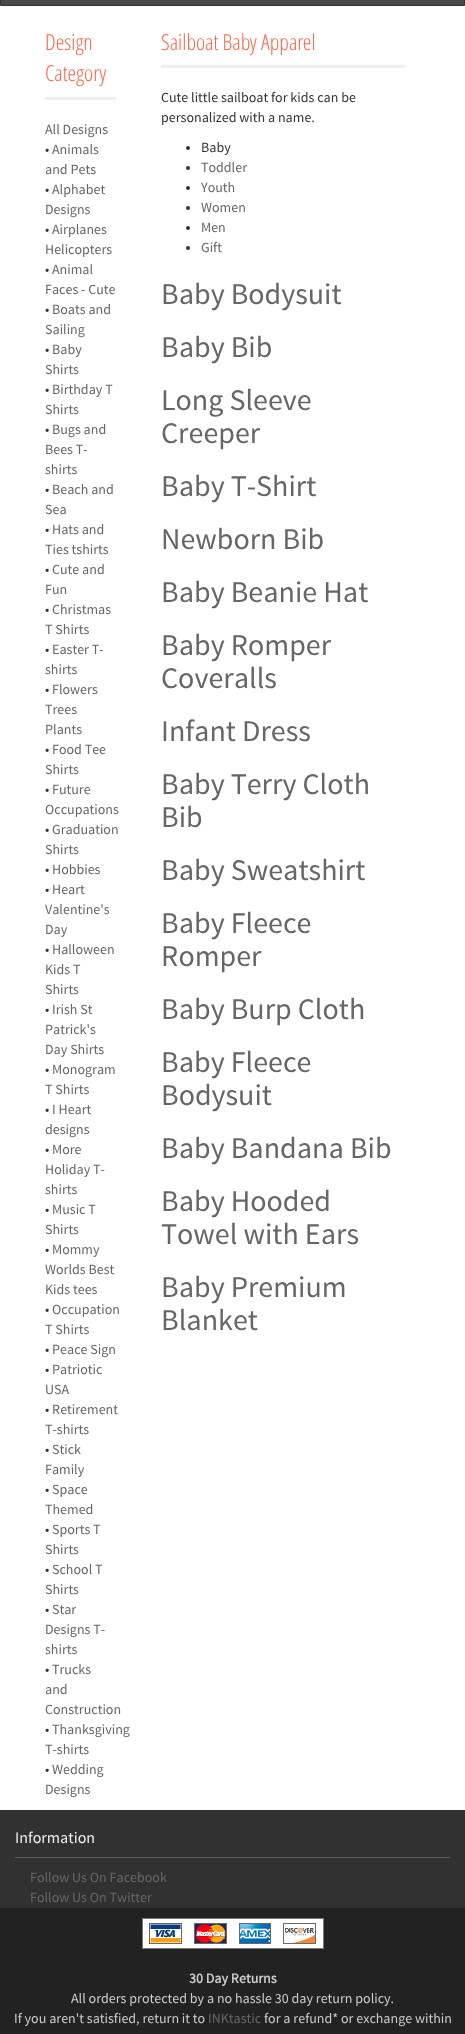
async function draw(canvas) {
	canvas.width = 465;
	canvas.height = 2034;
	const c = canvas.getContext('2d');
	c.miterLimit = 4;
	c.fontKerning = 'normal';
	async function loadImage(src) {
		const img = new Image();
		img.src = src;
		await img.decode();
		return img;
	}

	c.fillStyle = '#fff';
	c.fillRect(0, 0, 465, 2034);
	c.fillStyle = '#4a4a4a';
	c.beginPath();
	c.rect(0.5, -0.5, 464, 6);
	c.fill();
	c.strokeStyle = '#333';
	c.stroke();
	c.fillStyle = '#eee';
	c.fillRect(45, 97, 71, 3);
	c.font = '300 22px Open Sans';
	c.fillStyle = '#f96447';
	c.fillText('Design', 45, 50);
	c.fillText('Category', 45, 81);
	c.font = '14px Source Sans Pro';
	c.fillStyle = '#666';
	c.fillText('All Designs', 45, 134);
	c.fillStyle = '#333';
	c.fillText('•', 45, 154);
	c.fillStyle = '#666';
	c.fillText('Animals', 52, 154);
	c.fillText('and Pets', 45, 174);
	c.fillStyle = '#333';
	c.fillText('•', 45, 194);
	c.fillStyle = '#666';
	c.fillText('Alphabet', 52, 194);
	c.fillText('Designs', 45, 214);
	c.fillStyle = '#333';
	c.fillText('•', 45, 234);
	c.fillStyle = '#666';
	c.fillText('Airplanes', 52, 234);
	c.fillText('Helicopters', 45, 254);
	c.fillStyle = '#333';
	c.fillText('•', 45, 274);
	c.fillStyle = '#666';
	c.fillText('Animal', 52, 274);
	c.fillText('Faces - Cute', 45, 294);
	c.fillStyle = '#333';
	c.fillText('•', 45, 314);
	c.fillStyle = '#666';
	c.fillText('Boats and', 52, 314);
	c.fillText('Sailing', 45, 334);
	c.fillStyle = '#333';
	c.fillText('•', 45, 354);
	c.fillStyle = '#666';
	c.fillText('Baby', 52, 354);
	c.fillText('Shirts', 45, 374);
	c.fillStyle = '#333';
	c.fillText('•', 45, 394);
	c.fillStyle = '#666';
	c.fillText('Birthday T', 52, 394);
	c.fillText('Shirts', 45, 414);
	c.fillStyle = '#333';
	c.fillText('•', 45, 434);
	c.fillStyle = '#666';
	for (const [text, x, y] of [
		['Bugs and', 52, 434],
		['Bees T-', 45, 454],
		['shirts', 45, 474],
	]) {
		c.fillText(text, x, y);
	}
	c.fillStyle = '#333';
	c.fillText('•', 45, 494);
	c.fillStyle = '#666';
	c.fillText('Beach and', 52, 494);
	c.fillText('Sea', 45, 514);
	c.fillStyle = '#333';
	c.fillText('•', 45, 534);
	c.fillStyle = '#666';
	c.fillText('Hats and', 52, 534);
	c.fillText('Ties tshirts', 45, 554);
	c.fillStyle = '#333';
	c.fillText('•', 45, 574);
	c.fillStyle = '#666';
	c.fillText('Cute and', 52, 574);
	c.fillText('Fun', 45, 594);
	c.fillStyle = '#333';
	c.fillText('•', 45, 614);
	c.fillStyle = '#666';
	c.fillText('Christmas', 52, 614);
	c.fillText('T Shirts', 45, 634);
	c.fillStyle = '#333';
	c.fillText('•', 45, 654);
	c.fillStyle = '#666';
	c.fillText('Easter T-', 52, 654);
	c.fillText('shirts', 45, 674);
	c.fillStyle = '#333';
	c.fillText('•', 45, 694);
	c.fillStyle = '#666';
	for (const [text, x, y] of [
		['Flowers', 52, 694],
		['Trees', 45, 714],
		['Plants', 45, 734],
	]) {
		c.fillText(text, x, y);
	}
	c.fillStyle = '#333';
	c.fillText('•', 45, 754);
	c.fillStyle = '#666';
	c.fillText('Food Tee', 52, 754);
	c.fillText('Shirts', 45, 774);
	c.fillStyle = '#333';
	c.fillText('•', 45, 794);
	c.fillStyle = '#666';
	c.fillText('Future', 52, 794);
	c.fillText('Occupations', 45, 814);
	c.fillStyle = '#333';
	c.fillText('•', 45, 834);
	c.fillStyle = '#666';
	c.fillText('Graduation', 52, 834);
	c.fillText('Shirts', 45, 854);
	c.fillStyle = '#333';
	c.fillText('•', 45, 874);
	c.fillStyle = '#666';
	c.fillText('Hobbies', 52, 874);
	c.fillStyle = '#333';
	c.fillText('•', 45, 894);
	c.fillStyle = '#666';
	for (const [text, x, y] of [
		['Heart', 52, 894],
		['Valentine\'s', 45, 914],
		['Day', 45, 934],
	]) {
		c.fillText(text, x, y);
	}
	c.fillStyle = '#333';
	c.fillText('•', 45, 954);
	c.fillStyle = '#666';
	for (const [text, x, y] of [
		['Halloween', 52, 954],
		['Kids T', 45, 974],
		['Shirts', 45, 994],
	]) {
		c.fillText(text, x, y);
	}
	c.fillStyle = '#333';
	c.fillText('•', 45, 1014);
	c.fillStyle = '#666';
	for (const [text, x, y] of [
		['Irish St', 52, 1014],
		['Patrick\'s', 45, 1034],
		['Day Shirts', 45, 1054],
	]) {
		c.fillText(text, x, y);
	}
	c.fillStyle = '#333';
	c.fillText('•', 45, 1074);
	c.fillStyle = '#666';
	c.fillText('Monogram', 52, 1074);
	c.fillText('T Shirts', 45, 1094);
	c.fillStyle = '#333';
	c.fillText('•', 45, 1114);
	c.fillStyle = '#666';
	c.fillText('I Heart', 52, 1114);
	c.fillText('designs', 45, 1134);
	c.fillStyle = '#333';
	c.fillText('•', 45, 1154);
	c.fillStyle = '#666';
	for (const [text, x, y] of [
		['More', 52, 1154],
		['Holiday T-', 45, 1174],
		['shirts', 45, 1194],
	]) {
		c.fillText(text, x, y);
	}
	c.fillStyle = '#333';
	c.fillText('•', 45, 1214);
	c.fillStyle = '#666';
	c.fillText('Music T', 52, 1214);
	c.fillText('Shirts', 45, 1234);
	c.fillStyle = '#333';
	c.fillText('•', 45, 1254);
	c.fillStyle = '#666';
	for (const [text, x, y] of [
		['Mommy', 52, 1254],
		['Worlds Best', 45, 1274],
		['Kids tees', 45, 1294],
	]) {
		c.fillText(text, x, y);
	}
	c.fillStyle = '#333';
	c.fillText('•', 45, 1314);
	c.fillStyle = '#666';
	c.fillText('Occupation', 52, 1314);
	c.fillText('T Shirts', 45, 1334);
	c.fillStyle = '#333';
	c.fillText('•', 45, 1354);
	c.fillStyle = '#666';
	c.fillText('Peace Sign', 52, 1354);
	c.fillStyle = '#333';
	c.fillText('•', 45, 1374);
	c.fillStyle = '#666';
	c.fillText('Patriotic', 52, 1374);
	c.fillText('USA', 45, 1394);
	c.fillStyle = '#333';
	c.fillText('•', 45, 1414);
	c.fillStyle = '#666';
	c.fillText('Retirement', 52, 1414);
	c.fillText('T-shirts', 45, 1434);
	c.fillStyle = '#333';
	c.fillText('•', 45, 1454);
	c.fillStyle = '#666';
	c.fillText('Stick', 52, 1454);
	c.fillText('Family', 45, 1474);
	c.fillStyle = '#333';
	c.fillText('•', 45, 1494);
	c.fillStyle = '#666';
	c.fillText('Space', 52, 1494);
	c.fillText('Themed', 45, 1514);
	c.fillStyle = '#333';
	c.fillText('•', 45, 1534);
	c.fillStyle = '#666';
	c.fillText('Sports T', 52, 1534);
	c.fillText('Shirts', 45, 1554);
	c.fillStyle = '#333';
	c.fillText('•', 45, 1574);
	c.fillStyle = '#666';
	c.fillText('School T', 52, 1574);
	c.fillText('Shirts', 45, 1594);
	c.fillStyle = '#333';
	c.fillText('•', 45, 1614);
	c.fillStyle = '#666';
	for (const [text, x, y] of [
		['Star', 52, 1614],
		['Designs T-', 45, 1634],
		['shirts', 45, 1654],
	]) {
		c.fillText(text, x, y);
	}
	c.fillStyle = '#333';
	c.fillText('•', 45, 1674);
	c.fillStyle = '#666';
	for (const [text, x, y] of [
		['Trucks', 52, 1674],
		['and', 45, 1694],
		['Construction', 45, 1714],
	]) {
		c.fillText(text, x, y);
	}
	c.fillStyle = '#333';
	c.fillText('•', 45, 1734);
	c.fillStyle = '#666';
	c.fillText('Thanksgiving', 52, 1734);
	c.fillText('T-shirts', 45, 1754);
	c.fillStyle = '#333';
	c.fillText('•', 45, 1774);
	c.fillStyle = '#666';
	c.fillText('Wedding', 52, 1774);
	c.fillText('Designs', 45, 1794);
	c.fillStyle = '#eee';
	c.fillRect(161, 65, 244, 3);
	c.font = '300 22px Open Sans';
	c.fillStyle = '#f96447';
	c.fillText('Sailboat Baby Apparel', 161, 50);
	c.font = '14px Source Sans Pro';
	c.fillStyle = '#333';
	c.fillText('Cute little sailboat for kids can be', 161, 102);
	c.fillText('personalized with a name.', 161, 122);
	c.beginPath();
	c.arc(188, 148, 2, 0, 2 * Math.PI);
	c.fill();
	c.fillText('Baby', 201, 152);
	c.beginPath();
	c.arc(188, 168, 2, 0, 2 * Math.PI);
	c.fill();
	c.fillStyle = '#666';
	c.fillText('Toddler', 201, 172);
	c.fillStyle = '#333';
	c.beginPath();
	c.arc(188, 188, 2, 0, 2 * Math.PI);
	c.fill();
	c.fillStyle = '#666';
	c.fillText('Youth', 201, 192);
	c.fillStyle = '#333';
	c.beginPath();
	c.arc(188, 208, 2, 0, 2 * Math.PI);
	c.fill();
	c.fillStyle = '#666';
	c.fillText('Women', 201, 212);
	c.fillStyle = '#333';
	c.beginPath();
	c.arc(188, 228, 2, 0, 2 * Math.PI);
	c.fill();
	c.fillStyle = '#666';
	c.fillText('Men', 201, 232);
	c.fillStyle = '#333';
	c.beginPath();
	c.arc(188, 248, 2, 0, 2 * Math.PI);
	c.fill();
	c.fillStyle = '#666';
	c.fillText('Gift', 201, 252);
	c.font = '30px Source Sans Pro';
	for (const [text, x, y] of [
		['Baby Bodysuit', 161, 304],
		['Baby Bib', 161, 357],
		['Long Sleeve', 161, 410],
		['Creeper', 161, 443],
		['Baby T-Shirt', 161, 496],
		['Newborn Bib', 161, 549],
		['Baby Beanie Hat', 161, 602],
		['Baby Romper', 161, 655],
		['Coveralls', 161, 688],
		['Infant Dress', 161, 741],
		['Baby Terry Cloth', 161, 794],
		['Bib', 161, 827],
		['Baby Sweatshirt', 161, 880],
		['Baby Fleece', 161, 933],
		['Romper', 161, 966],
		['Baby Burp Cloth', 161, 1019],
		['Baby Fleece', 161, 1072],
		['Bodysuit', 161, 1105],
		['Baby Bandana Bib', 161, 1158],
		['Baby Hooded', 161, 1211],
		['Towel with Ears', 161, 1244],
		['Baby Premium', 161, 1297],
		['Blanket', 161, 1330],
	]) {
		c.fillText(text, x, y);
	}
	c.fillStyle = '#313131';
	c.fillRect(0, 1810, 465, 98);
	c.fillStyle = '#5d5d5d';
	c.fillRect(15, 1857, 435, 1);
	c.font = '16px Source Sans Pro';
	c.fillStyle = '#eee';
	c.fillText('Information', 15, 1843);
	c.font = '14px Source Sans Pro';
	c.fillStyle = '#666';
	c.fillText('Follow Us On Facebook', 30, 1882);
	c.fillText('Follow Us On Twitter', 30, 1902);
	c.fillStyle = '#222';
	c.fillRect(0, 1908, 465, 126);
	c.drawImage(await loadImage('img1.png'), 142, 1918, 182, 31);
	c.font = 'bold 14px Source Sans Pro';
	c.fillStyle = '#ccc';
	c.fillText('30 Day Returns', 189, 1983);
	c.font = '14px Source Sans Pro';
	c.fillText('All orders protected by a no hassle 30 day return policy.', 71, 2003);
	c.fillText('If you aren\'t satisfied, return it to', 14, 2023);
	c.fillStyle = '#666';
	c.fillText('INKtastic', 208, 2023);
	c.fillStyle = '#ccc';
	c.fillText('for a refund* or exchange within', 264, 2023);
}

draw(document.querySelector('canvas'));
